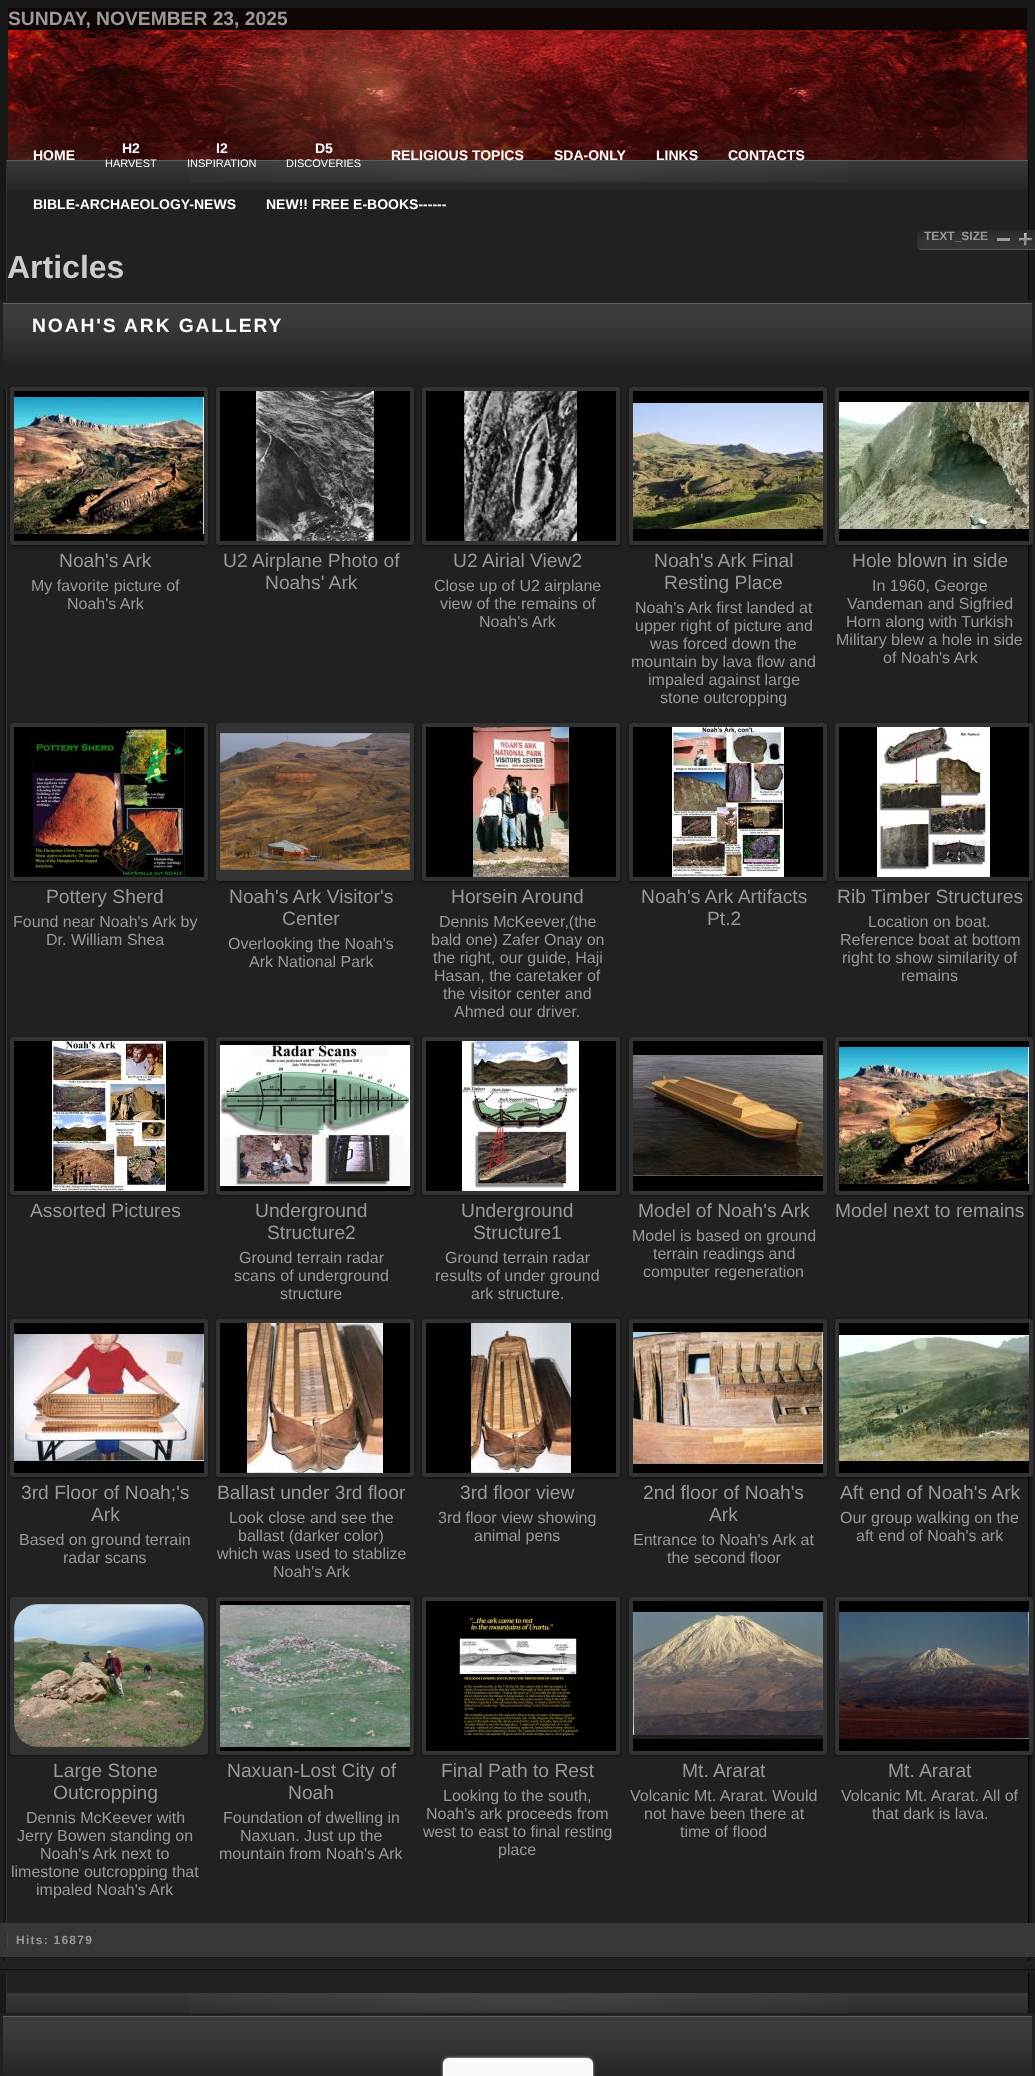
async function draw(canvas) {
	canvas.width = 1035;
	canvas.height = 2076;
	const c = canvas.getContext('2d');
	c.miterLimit = 4;
	c.fontKerning = 'normal';
	async function loadImage(src) {
		const img = new Image();
		img.src = src;
		await img.decode();
		return img;
	}

	c.fillStyle = '#181818';
	c.fillRect(0, 0, 1035, 2076);
	c.drawImage(await loadImage('img1.png'), 8, 30, 1019, 130);
	c.fillStyle = '#110606';
	c.fillRect(8, 8, 1019, 22);
	c.font = 'bold 19.25px Liberation Sans';
	c.fillStyle = '#999';
	c.fillText('SUNDAY, NOVEMBER 23, 2025', 8, 25);
	c.fillStyle = '#5e5e5e';
	c.fillRect(6, 160, 1023, 1);
	c.font = 'bold 14px Liberation Sans';
	c.fillStyle = '#fff';
	c.fillText('HOME', 33, 160);
	c.fillText('H2', 122, 153);
	c.drawImage(await loadImage('img2.png'), 7, 161, 1021, 29);
	c.font = '11px Liberation Sans';
	c.fillText('HARVEST', 105, 167);
	c.font = 'bold 14px Liberation Sans';
	c.fillText('I2', 216, 153);
	c.drawImage(await loadImage('img3.png'), 189, 161, 659, 21);
	c.font = '11px Liberation Sans';
	c.fillText('INSPIRATION', 187, 167);
	c.font = 'bold 14px Liberation Sans';
	c.fillText('D5', 315, 153);
	c.font = '11px Liberation Sans';
	c.fillText('DISCOVERIES', 286, 167);
	c.font = 'bold 14px Liberation Sans';
	for (const [text, x, y] of [
		['RELIGIOUS TOPICS', 391, 160],
		['SDA-ONLY', 554, 160],
		['LINKS', 656, 160],
		['CONTACTS', 728, 160],
	]) {
		c.fillText(text, x, y);
	}
	c.fillStyle = '#212121';
	c.fillRect(7, 190, 1021, 1803);
	c.fillStyle = '#fff';
	c.fillText('BIBLE-ARCHAEOLOGY-NEWS', 33, 209);
	c.fillText('NEW!! FREE E-BOOKS------', 266, 209);
	c.fillStyle = '#000';
	c.fillRect(1028, 160, 1, 1853);
	c.fillStyle = '#333';
	c.fillRect(6, 160, 1, 1853);
	c.drawImage(await loadImage('img4.png'), 917, 229, 118, 21);
	c.font = 'bold 12px Liberation Sans';
	c.fillStyle = '#999';
	c.fillText('TEXT_SIZE', 924, 240);
	c.fillStyle = '#9d9d9d';
	c.fillRect(997, 238, 13, 3);
	c.drawImage(await loadImage('img5.png'), 1019, 233, 13, 13);
	c.font = 'bold 32px Liberation Sans';
	c.fillStyle = '#ccc';
	c.fillText('Articles', 7, 278);
	c.drawImage(await loadImage('img6.png'), 0, 300, 1035, 89);
	c.fillStyle = '#212121';
	c.fillRect(0, 303, 3, 1658);
	c.fillRect(1032, 303, 3, 1658);
	c.drawImage(await loadImage('img7.png'), 0, 1961, 1035, 12);
	c.letterSpacing = '1.9px';
	c.font = 'bold 19.25px Liberation Sans';
	c.fillStyle = '#fff';
	c.fillText('NOAH\'S ARK GALLERY', 32, 332);
	c.fillStyle = '#00000099';
	c.filter = 'blur(1.5px)';
	c.beginPath();
	c.roundRect(10, 388, 198, 158, 3);
	c.fill();
	c.filter = 'none';
	c.fillStyle = '#333';
	c.beginPath();
	c.roundRect(10, 387, 198, 158, 3);
	c.fill();
	c.drawImage(await loadImage('img8.png'), 14, 391, 190, 150);
	c.letterSpacing = '0px';
	c.font = '19.25px Liberation Sans';
	c.fillStyle = '#999';
	c.fillText('Noah\'s Ark', 59, 567);
	c.font = '16px Liberation Sans';
	c.fillText('My favorite picture of', 31, 591);
	c.fillText('Noah\'s Ark', 67, 609);
	c.fillStyle = '#00000099';
	c.filter = 'blur(1.5px)';
	c.beginPath();
	c.roundRect(216, 388, 198, 158, 3);
	c.fill();
	c.filter = 'none';
	c.fillStyle = '#333';
	c.beginPath();
	c.roundRect(216, 387, 198, 158, 3);
	c.fill();
	c.drawImage(await loadImage('img9.png'), 220, 391, 190, 150);
	c.font = '19.25px Liberation Sans';
	c.fillStyle = '#999';
	c.fillText('U2 Airplane Photo of', 223, 567);
	c.fillText('Noahs\' Ark', 265, 589);
	c.fillStyle = '#00000099';
	c.filter = 'blur(1.5px)';
	c.beginPath();
	c.roundRect(422, 388, 198, 158, 3);
	c.fill();
	c.filter = 'none';
	c.fillStyle = '#333';
	c.beginPath();
	c.roundRect(422, 387, 198, 158, 3);
	c.fill();
	c.drawImage(await loadImage('img10.png'), 426, 391, 190, 150);
	c.fillStyle = '#999';
	c.fillText('U2 Airial View2', 453, 567);
	c.font = '16px Liberation Sans';
	for (const [text, x, y] of [
		['Close up of U2 airplane', 434, 591],
		['view of the remains of', 440, 609],
		['Noah\'s Ark', 479, 627],
	]) {
		c.fillText(text, x, y);
	}
	c.fillStyle = '#00000099';
	c.filter = 'blur(1.5px)';
	c.beginPath();
	c.roundRect(629, 388, 198, 158, 3);
	c.fill();
	c.filter = 'none';
	c.fillStyle = '#333';
	c.beginPath();
	c.roundRect(629, 387, 198, 158, 3);
	c.fill();
	c.drawImage(await loadImage('img11.png'), 633, 391, 190, 150);
	c.font = '19.25px Liberation Sans';
	c.fillStyle = '#999';
	c.fillText('Noah\'s Ark Final', 654, 567);
	c.fillText('Resting Place', 664, 589);
	c.font = '16px Liberation Sans';
	for (const [text, x, y] of [
		['Noah\'s Ark first landed at', 635, 613],
		['upper right of picture and', 635, 631],
		['was forced down the', 650, 649],
		['mountain by lava flow and', 631, 667],
		['impaled against large', 648, 685],
		['stone outcropping', 660, 703],
	]) {
		c.fillText(text, x, y);
	}
	c.save();
	c.beginPath();
	c.rect(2, 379, 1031, 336);
	c.clip();
	c.fillStyle = '#00000099';
	c.filter = 'blur(1.5px)';
	c.beginPath();
	c.roundRect(835, 388, 198, 158, 3);
	c.fill();
	c.filter = 'none';
	c.restore();
	c.fillStyle = '#333';
	c.beginPath();
	c.roundRect(835, 387, 198, 158, 3);
	c.fill();
	c.drawImage(await loadImage('img12.png'), 839, 391, 190, 150);
	c.font = '19.25px Liberation Sans';
	c.fillStyle = '#999';
	c.fillText('Hole blown in side', 852, 567);
	c.font = '16px Liberation Sans';
	for (const [text, x, y] of [
		['In 1960, George', 872, 591],
		['Vandeman and Sigfried', 847, 609],
		['Horn along with Turkish', 846, 627],
		['Military blew a hole in side', 836, 645],
		['of Noah\'s Ark', 883, 663],
	]) {
		c.fillText(text, x, y);
	}
	c.fillStyle = '#00000099';
	c.filter = 'blur(1.5px)';
	c.beginPath();
	c.roundRect(10, 724, 198, 158, 3);
	c.fill();
	c.filter = 'none';
	c.fillStyle = '#333';
	c.beginPath();
	c.roundRect(10, 723, 198, 158, 3);
	c.fill();
	c.drawImage(await loadImage('img13.png'), 14, 727, 190, 150);
	c.font = '19.25px Liberation Sans';
	c.fillStyle = '#999';
	c.fillText('Pottery Sherd', 46, 903);
	c.font = '16px Liberation Sans';
	c.fillText('Found near Noah\'s Ark by', 13, 927);
	c.fillText('Dr. William Shea', 46, 945);
	c.fillStyle = '#00000099';
	c.filter = 'blur(1.5px)';
	c.beginPath();
	c.roundRect(216, 724, 198, 158, 3);
	c.fill();
	c.filter = 'none';
	c.fillStyle = '#333';
	c.beginPath();
	c.roundRect(216, 723, 198, 158, 3);
	c.fill();
	c.drawImage(await loadImage('img14.png'), 220, 733, 190, 137);
	c.font = '19.25px Liberation Sans';
	c.fillStyle = '#999';
	c.fillText('Noah\'s Ark Visitor\'s', 229, 903);
	c.fillText('Center', 282, 925);
	c.font = '16px Liberation Sans';
	c.fillText('Overlooking the Noah\'s', 228, 949);
	c.fillText('Ark National Park', 249, 967);
	c.fillStyle = '#00000099';
	c.filter = 'blur(1.5px)';
	c.beginPath();
	c.roundRect(422, 724, 198, 158, 3);
	c.fill();
	c.filter = 'none';
	c.fillStyle = '#333';
	c.beginPath();
	c.roundRect(422, 723, 198, 158, 3);
	c.fill();
	c.drawImage(await loadImage('img15.png'), 426, 727, 190, 150);
	c.font = '19.25px Liberation Sans';
	c.fillStyle = '#999';
	c.fillText('Horsein Around', 451, 903);
	c.font = '16px Liberation Sans';
	for (const [text, x, y] of [
		['Dennis McKeever,(the', 439, 927],
		['bald one) Zafer Onay on', 431, 945],
		['the right, our guide, Haji', 433, 963],
		['Hasan, the caretaker of', 434, 981],
		['the visitor center and', 443, 999],
		['Ahmed our driver.', 454, 1017],
	]) {
		c.fillText(text, x, y);
	}
	c.fillStyle = '#00000099';
	c.filter = 'blur(1.5px)';
	c.beginPath();
	c.roundRect(629, 724, 198, 158, 3);
	c.fill();
	c.filter = 'none';
	c.fillStyle = '#333';
	c.beginPath();
	c.roundRect(629, 723, 198, 158, 3);
	c.fill();
	c.drawImage(await loadImage('img16.png'), 633, 727, 190, 150);
	c.font = '19.25px Liberation Sans';
	c.fillStyle = '#999';
	c.fillText('Noah\'s Ark Artifacts', 641, 903);
	c.fillText('Pt.2', 707, 925);
	c.save();
	c.beginPath();
	c.rect(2, 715, 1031, 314);
	c.clip();
	c.fillStyle = '#00000099';
	c.filter = 'blur(1.5px)';
	c.beginPath();
	c.roundRect(835, 724, 198, 158, 3);
	c.fill();
	c.filter = 'none';
	c.restore();
	c.fillStyle = '#333';
	c.beginPath();
	c.roundRect(835, 723, 198, 158, 3);
	c.fill();
	c.drawImage(await loadImage('img17.png'), 839, 727, 190, 150);
	c.fillStyle = '#999';
	c.fillText('Rib Timber Structures', 837, 903);
	c.font = '16px Liberation Sans';
	for (const [text, x, y] of [
		['Location on boat.', 868, 927],
		['Reference boat at bottom', 840, 945],
		['right to show similarity of', 842, 963],
		['remains', 901, 981],
	]) {
		c.fillText(text, x, y);
	}
	c.fillStyle = '#00000099';
	c.filter = 'blur(1.5px)';
	c.beginPath();
	c.roundRect(10, 1038, 198, 158, 3);
	c.fill();
	c.filter = 'none';
	c.fillStyle = '#333';
	c.beginPath();
	c.roundRect(10, 1037, 198, 158, 3);
	c.fill();
	c.drawImage(await loadImage('img18.png'), 14, 1041, 190, 150);
	c.font = '19.25px Liberation Sans';
	c.fillStyle = '#999';
	c.fillText('Assorted Pictures', 30, 1217);
	c.fillStyle = '#00000099';
	c.filter = 'blur(1.5px)';
	c.beginPath();
	c.roundRect(216, 1038, 198, 158, 3);
	c.fill();
	c.filter = 'none';
	c.fillStyle = '#333';
	c.beginPath();
	c.roundRect(216, 1037, 198, 158, 3);
	c.fill();
	c.drawImage(await loadImage('img19.png'), 220, 1041, 190, 150);
	c.fillStyle = '#999';
	c.fillText('Underground', 255, 1217);
	c.fillText('Structure2', 267, 1239);
	c.font = '16px Liberation Sans';
	for (const [text, x, y] of [
		['Ground terrain radar', 239, 1263],
		['scans of underground', 234, 1281],
		['structure', 280, 1299],
	]) {
		c.fillText(text, x, y);
	}
	c.fillStyle = '#00000099';
	c.filter = 'blur(1.5px)';
	c.beginPath();
	c.roundRect(422, 1038, 198, 158, 3);
	c.fill();
	c.filter = 'none';
	c.fillStyle = '#333';
	c.beginPath();
	c.roundRect(422, 1037, 198, 158, 3);
	c.fill();
	c.drawImage(await loadImage('img20.png'), 426, 1041, 190, 150);
	c.font = '19.25px Liberation Sans';
	c.fillStyle = '#999';
	c.fillText('Underground', 461, 1217);
	c.fillText('Structure1', 473, 1239);
	c.font = '16px Liberation Sans';
	for (const [text, x, y] of [
		['Ground terrain radar', 445, 1263],
		['results of under ground', 435, 1281],
		['ark structure.', 471, 1299],
	]) {
		c.fillText(text, x, y);
	}
	c.fillStyle = '#00000099';
	c.filter = 'blur(1.5px)';
	c.beginPath();
	c.roundRect(629, 1038, 198, 158, 3);
	c.fill();
	c.filter = 'none';
	c.fillStyle = '#333';
	c.beginPath();
	c.roundRect(629, 1037, 198, 158, 3);
	c.fill();
	c.drawImage(await loadImage('img21.png'), 633, 1041, 190, 150);
	c.font = '19.25px Liberation Sans';
	c.fillStyle = '#999';
	c.fillText('Model of Noah\'s Ark', 638, 1217);
	c.font = '16px Liberation Sans';
	for (const [text, x, y] of [
		['Model is based on ground', 632, 1241],
		['terrain readings and', 653, 1259],
		['computer regeneration', 643, 1277],
	]) {
		c.fillText(text, x, y);
	}
	c.save();
	c.beginPath();
	c.rect(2, 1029, 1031, 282);
	c.clip();
	c.fillStyle = '#00000099';
	c.filter = 'blur(1.5px)';
	c.beginPath();
	c.roundRect(835, 1038, 198, 158, 3);
	c.fill();
	c.filter = 'none';
	c.restore();
	c.fillStyle = '#333';
	c.beginPath();
	c.roundRect(835, 1037, 198, 158, 3);
	c.fill();
	c.drawImage(await loadImage('img22.png'), 839, 1041, 190, 150);
	c.font = '19.25px Liberation Sans';
	c.fillStyle = '#999';
	c.fillText('Model next to remains', 835, 1217);
	c.fillStyle = '#00000099';
	c.filter = 'blur(1.5px)';
	c.beginPath();
	c.roundRect(10, 1320, 198, 158, 3);
	c.fill();
	c.filter = 'none';
	c.fillStyle = '#333';
	c.beginPath();
	c.roundRect(10, 1319, 198, 158, 3);
	c.fill();
	c.drawImage(await loadImage('img23.png'), 14, 1323, 190, 150);
	c.fillStyle = '#999';
	c.fillText('3rd Floor of Noah;\'s', 21, 1499);
	c.fillText('Ark', 91, 1521);
	c.font = '16px Liberation Sans';
	c.fillText('Based on ground terrain', 19, 1545);
	c.fillText('radar scans', 63, 1563);
	c.fillStyle = '#00000099';
	c.filter = 'blur(1.5px)';
	c.beginPath();
	c.roundRect(216, 1320, 198, 158, 3);
	c.fill();
	c.filter = 'none';
	c.fillStyle = '#333';
	c.beginPath();
	c.roundRect(216, 1319, 198, 158, 3);
	c.fill();
	c.drawImage(await loadImage('img24.png'), 220, 1323, 190, 150);
	c.font = '19.25px Liberation Sans';
	c.fillStyle = '#999';
	c.fillText('Ballast under 3rd floor', 217, 1499);
	c.font = '16px Liberation Sans';
	for (const [text, x, y] of [
		['Look close and see the', 229, 1523],
		['ballast (darker color)', 238, 1541],
		['which was used to stablize', 217, 1559],
		['Noah\'s Ark', 273, 1577],
	]) {
		c.fillText(text, x, y);
	}
	c.fillStyle = '#00000099';
	c.filter = 'blur(1.5px)';
	c.beginPath();
	c.roundRect(422, 1320, 198, 158, 3);
	c.fill();
	c.filter = 'none';
	c.fillStyle = '#333';
	c.beginPath();
	c.roundRect(422, 1319, 198, 158, 3);
	c.fill();
	c.drawImage(await loadImage('img25.png'), 426, 1323, 190, 150);
	c.font = '19.25px Liberation Sans';
	c.fillStyle = '#999';
	c.fillText('3rd floor view', 460, 1499);
	c.font = '16px Liberation Sans';
	c.fillText('3rd floor view showing', 438, 1523);
	c.fillText('animal pens', 474, 1541);
	c.fillStyle = '#00000099';
	c.filter = 'blur(1.5px)';
	c.beginPath();
	c.roundRect(629, 1320, 198, 158, 3);
	c.fill();
	c.filter = 'none';
	c.fillStyle = '#333';
	c.beginPath();
	c.roundRect(629, 1319, 198, 158, 3);
	c.fill();
	c.drawImage(await loadImage('img26.png'), 633, 1323, 190, 150);
	c.font = '19.25px Liberation Sans';
	c.fillStyle = '#999';
	c.fillText('2nd floor of Noah\'s', 643, 1499);
	c.fillText('Ark', 709, 1521);
	c.font = '16px Liberation Sans';
	c.fillText('Entrance to Noah\'s Ark at', 633, 1545);
	c.fillText('the second floor', 667, 1563);
	c.save();
	c.beginPath();
	c.rect(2, 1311, 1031, 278);
	c.clip();
	c.fillStyle = '#00000099';
	c.filter = 'blur(1.5px)';
	c.beginPath();
	c.roundRect(835, 1320, 198, 158, 3);
	c.fill();
	c.filter = 'none';
	c.restore();
	c.fillStyle = '#333';
	c.beginPath();
	c.roundRect(835, 1319, 198, 158, 3);
	c.fill();
	c.drawImage(await loadImage('img27.png'), 839, 1323, 190, 150);
	c.font = '19.25px Liberation Sans';
	c.fillStyle = '#999';
	c.fillText('Aft end of Noah\'s Ark', 840, 1499);
	c.font = '16px Liberation Sans';
	c.fillText('Our group walking on the', 840, 1523);
	c.fillText('aft end of Noah\'s ark', 856, 1541);
	c.fillStyle = '#00000099';
	c.filter = 'blur(1.5px)';
	c.beginPath();
	c.roundRect(10, 1598, 198, 158, 3);
	c.fill();
	c.filter = 'none';
	c.fillStyle = '#333';
	c.beginPath();
	c.roundRect(10, 1597, 198, 158, 3);
	c.fill();
	c.drawImage(await loadImage('img28.png'), 14, 1604, 190, 143);
	c.font = '19.25px Liberation Sans';
	c.fillStyle = '#999';
	c.fillText('Large Stone', 53, 1777);
	c.fillText('Outcropping', 53, 1799);
	c.font = '16px Liberation Sans';
	for (const [text, x, y] of [
		['Dennis McKeever with', 26, 1823],
		['Jerry Bowen standing on', 17, 1841],
		['Noah\'s Ark next to', 40, 1859],
		['limestone outcropping that', 11, 1877],
		['impaled Noah\'s Ark', 36, 1895],
	]) {
		c.fillText(text, x, y);
	}
	c.fillStyle = '#00000099';
	c.filter = 'blur(1.5px)';
	c.beginPath();
	c.roundRect(216, 1598, 198, 158, 3);
	c.fill();
	c.filter = 'none';
	c.fillStyle = '#333';
	c.beginPath();
	c.roundRect(216, 1597, 198, 158, 3);
	c.fill();
	c.drawImage(await loadImage('img29.png'), 220, 1601, 190, 150);
	c.font = '19.25px Liberation Sans';
	c.fillStyle = '#999';
	c.fillText('Naxuan-Lost City of', 227, 1777);
	c.fillText('Noah', 288, 1799);
	c.font = '16px Liberation Sans';
	for (const [text, x, y] of [
		['Foundation of dwelling in', 223, 1823],
		['Naxuan. Just up the', 240, 1841],
		['mountain from Noah\'s Ark', 219, 1859],
	]) {
		c.fillText(text, x, y);
	}
	c.fillStyle = '#00000099';
	c.filter = 'blur(1.5px)';
	c.beginPath();
	c.roundRect(422, 1598, 198, 158, 3);
	c.fill();
	c.filter = 'none';
	c.fillStyle = '#333';
	c.beginPath();
	c.roundRect(422, 1597, 198, 158, 3);
	c.fill();
	c.drawImage(await loadImage('img30.png'), 426, 1601, 190, 150);
	c.font = '19.25px Liberation Sans';
	c.fillStyle = '#999';
	c.fillText('Final Path to Rest', 441, 1777);
	c.font = '16px Liberation Sans';
	for (const [text, x, y] of [
		['Looking to the south,', 443, 1801],
		['Noah\'s ark proceeds from', 426, 1819],
		['west to east to final resting', 423, 1837],
		['place', 498, 1855],
	]) {
		c.fillText(text, x, y);
	}
	c.fillStyle = '#00000099';
	c.filter = 'blur(1.5px)';
	c.beginPath();
	c.roundRect(629, 1598, 198, 158, 3);
	c.fill();
	c.filter = 'none';
	c.fillStyle = '#333';
	c.beginPath();
	c.roundRect(629, 1597, 198, 158, 3);
	c.fill();
	c.drawImage(await loadImage('img31.png'), 633, 1601, 190, 150);
	c.font = '19.25px Liberation Sans';
	c.fillStyle = '#999';
	c.fillText('Mt. Ararat', 682, 1777);
	c.font = '16px Liberation Sans';
	for (const [text, x, y] of [
		['Volcanic Mt. Ararat. Would', 630, 1801],
		['not have been there at', 644, 1819],
		['time of flood', 680, 1837],
	]) {
		c.fillText(text, x, y);
	}
	c.save();
	c.beginPath();
	c.rect(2, 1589, 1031, 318);
	c.clip();
	c.fillStyle = '#00000099';
	c.filter = 'blur(1.5px)';
	c.beginPath();
	c.roundRect(835, 1598, 198, 158, 3);
	c.fill();
	c.filter = 'none';
	c.restore();
	c.fillStyle = '#333';
	c.beginPath();
	c.roundRect(835, 1597, 198, 158, 3);
	c.fill();
	c.drawImage(await loadImage('img32.png'), 839, 1601, 190, 150);
	c.font = '19.25px Liberation Sans';
	c.fillStyle = '#999';
	c.fillText('Mt. Ararat', 888, 1777);
	c.font = '16px Liberation Sans';
	c.fillText('Volcanic Mt. Ararat. All of', 841, 1801);
	c.fillText('that dark is lava.', 872, 1819);
	c.fillStyle = '#373737';
	c.fillRect(0, 1923, 1035, 34);
	c.fillStyle = '#1a1a1a';
	c.fillRect(0, 1957, 1035, 1);
	c.letterSpacing = '1.25px';
	c.font = 'bold 12px Liberation Sans';
	c.fillStyle = '#999';
	c.fillText('Hits: 16879', 16, 1944);
	c.fillStyle = '#444';
	c.fillRect(7, 1933, 1, 14);
	c.drawImage(await loadImage('img33.png'), 7, 1993, 1021, 20);
	c.drawImage(await loadImage('img34.png'), 189, 1993, 659, 20);
	c.drawImage(await loadImage('img35.png'), 0, 2013, 1035, 63);
	c.fillStyle = '#212121';
	c.fillRect(0, 2016, 3, 58);
	c.fillRect(1032, 2016, 3, 58);
	c.fillStyle = '#ccc';
	c.filter = 'blur(1.5px)';
	c.beginPath();
	c.roundRect(443, 2058, 150, 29, 6);
	c.fill();
	c.filter = 'none';
	c.fillStyle = '#f9f9f9';
	c.beginPath();
	c.roundRect(444, 2059, 148, 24, 5);
	c.fill();
	c.strokeStyle = '#fff';
	c.lineWidth = 2;
	c.stroke();
}

draw(document.querySelector('canvas'));
